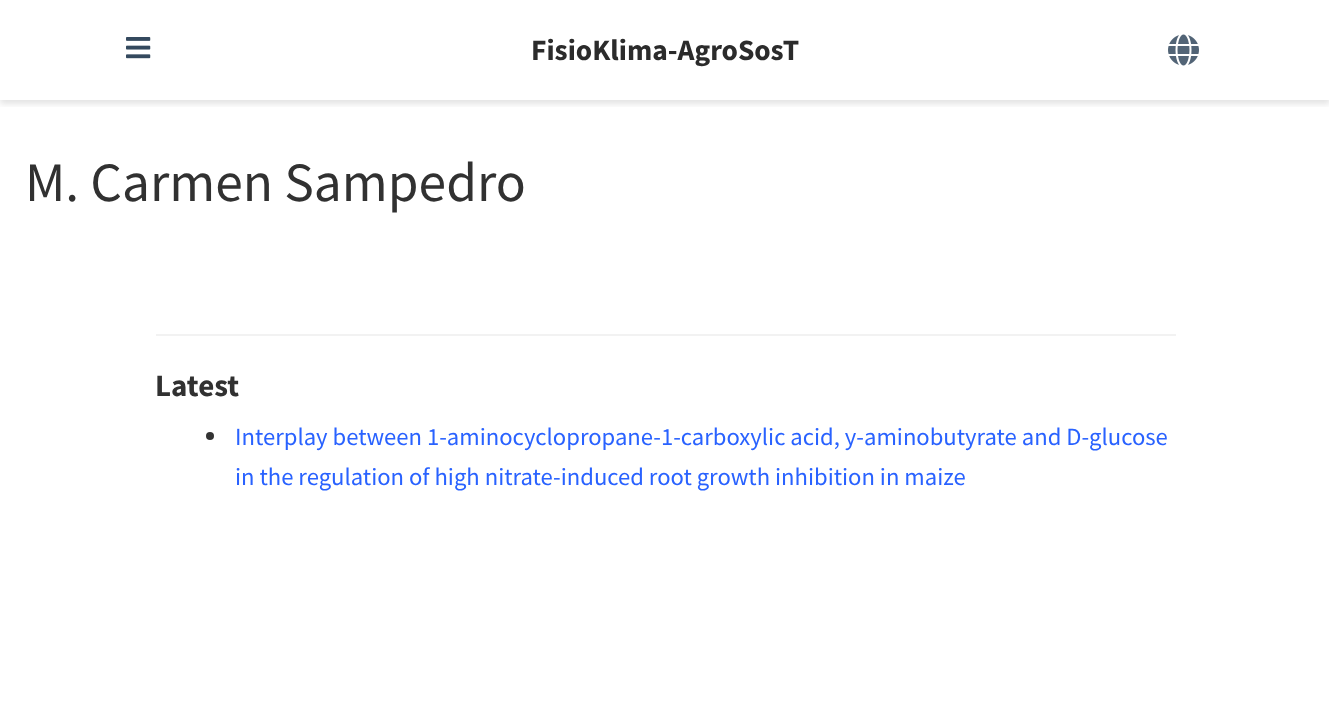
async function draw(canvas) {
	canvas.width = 1329;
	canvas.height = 718;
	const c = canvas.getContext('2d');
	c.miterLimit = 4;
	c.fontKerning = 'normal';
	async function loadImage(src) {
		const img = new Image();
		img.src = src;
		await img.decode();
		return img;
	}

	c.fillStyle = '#fff';
	c.fillRect(0, 0, 1329, 718);
	c.save();
	c.beginPath();
	c.rect(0, 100, 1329, 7);
	c.clip();
	c.fillStyle = '#0000001c';
	c.filter = 'blur(3px)';
	c.beginPath();
	c.rect(0, 4, 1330, 100);
	c.fill();
	c.filter = 'none';
	c.restore();
	c.drawImage(await loadImage('img1.png'), 126, 37, 25, 22);
	c.font = 'bold 29.5px Source Sans Pro';
	c.fillStyle = '#2b2b2b';
	c.fillText('FisioKlima-AgroSosT', 531, 60);
	c.drawImage(await loadImage('img2.png'), 1168, 34, 31, 32);
	c.font = '55.5px Source Sans Pro';
	c.fillStyle = '#313131';
	c.fillText('M. Carmen Sampedro', 25, 201);
	c.fillStyle = '#f2f2f2';
	c.fillRect(156, 334, 1020, 2);
	c.font = 'bold 31px Source Sans Pro';
	c.fillStyle = '#313131';
	c.fillText('Latest', 155, 396);
	c.fillStyle = '#333';
	c.beginPath();
	c.arc(210, 436, 4, 0, 2 * Math.PI);
	c.fill();
	c.font = '24.65px Source Sans Pro';
	c.fillStyle = '#2962ff';
	c.fillText('Interplay between 1-aminocyclopropane-1-carboxylic acid, y-aminobutyrate and D-glucose', 235, 445);
	c.fillText('in the regulation of high nitrate-induced root growth inhibition in maize', 235, 485);
}

draw(document.querySelector('canvas'));
